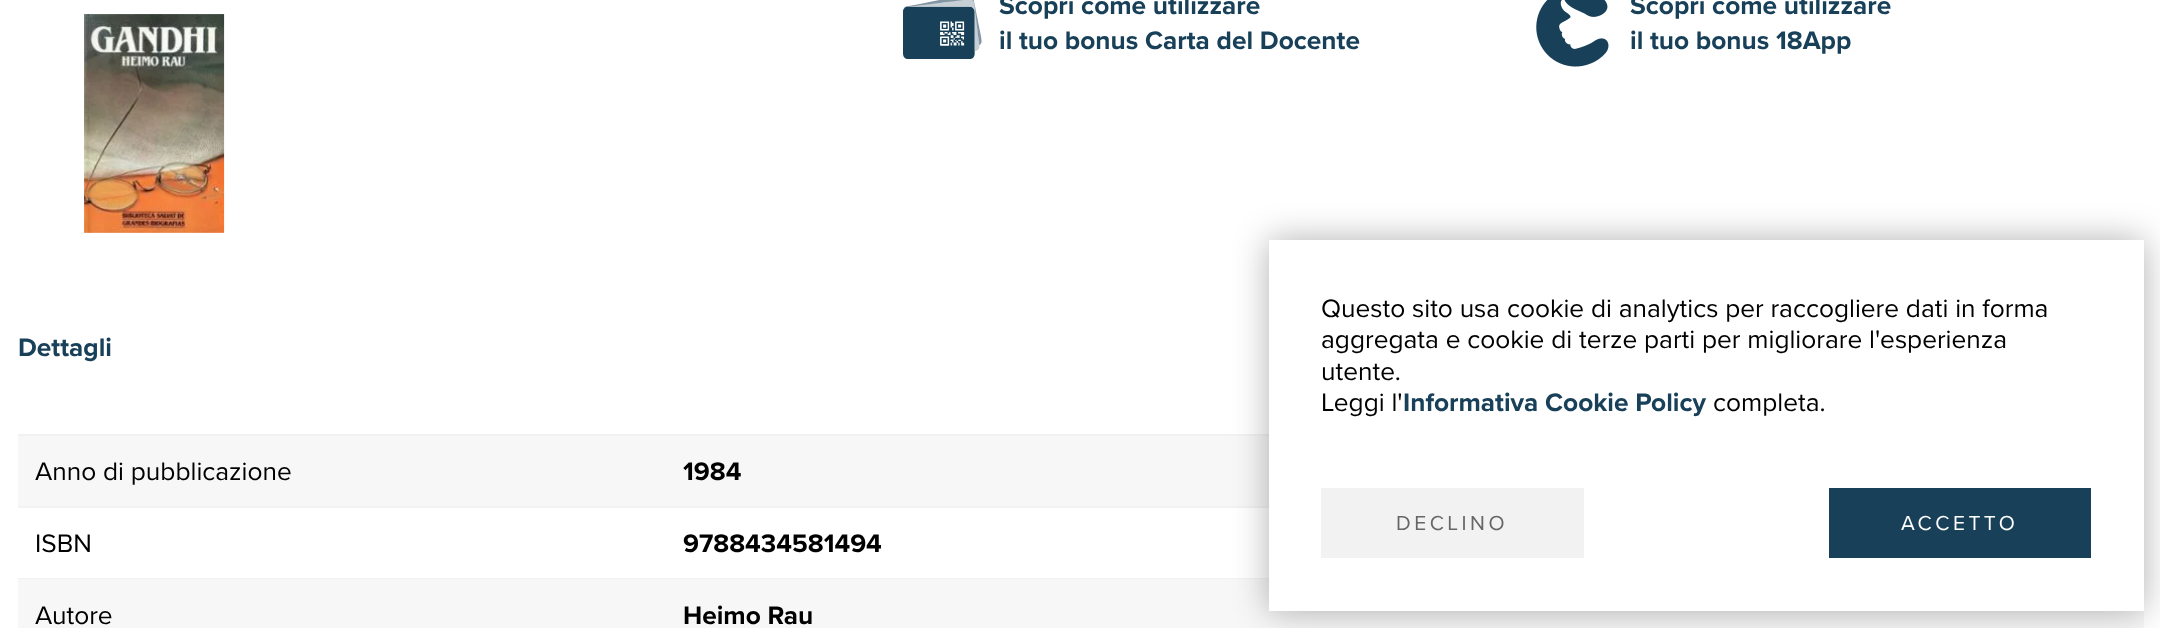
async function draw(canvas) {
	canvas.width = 2160;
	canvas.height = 628;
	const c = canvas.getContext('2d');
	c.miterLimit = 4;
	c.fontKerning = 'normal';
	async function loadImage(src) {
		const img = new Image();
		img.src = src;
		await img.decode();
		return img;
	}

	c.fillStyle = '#fff';
	c.fillRect(0, 0, 2160, 628);
	c.drawImage(await loadImage('img1.png'), 84, 14, 141, 219);
	c.drawImage(await loadImage('img2.png'), 903, 0, 79, 59);
	c.font = 'bold 26.25px Proxima Nova';
	c.fillStyle = '#184059';
	c.fillText('Scopri come utilizzare', 999, 14);
	c.fillText('il tuo bonus Carta del Docente', 999, 49);
	c.drawImage(await loadImage('img3.png'), 1536, 0, 73, 67);
	for (const [text, x, y] of [
		['Scopri come utilizzare', 1630, 14],
		['il tuo bonus 18App', 1630, 49],
		['Dettagli', 18, 356],
	]) {
		c.fillText(text, x, y);
	}
	for (const [x, y, w, h, color] of [
		[18, 436, 1251, 70, '#f7f7f7'],
		[18, 434, 1251, 2, '#f2f2f2'],
		[18, 506, 1251, 2, '#f2f2f2'],
	]) {
		c.fillStyle = color;
		c.fillRect(x, y, w, h);
	}
	c.font = '26.25px Proxima Nova';
	c.fillStyle = '#000';
	c.fillText('Anno di pubblicazione', 35, 480);
	c.font = 'bold 26.25px Proxima Nova';
	c.fillText('1984', 683, 480);
	c.fillStyle = '#f2f2f2';
	c.fillRect(18, 578, 1251, 1);
	c.font = '26.25px Proxima Nova';
	c.fillStyle = '#000';
	c.fillText('ISBN', 35, 552);
	c.font = 'bold 26.25px Proxima Nova';
	c.fillText('9788434581494', 683, 552);
	c.fillStyle = '#f7f7f7';
	c.fillRect(18, 579, 2126, 49);
	c.font = '26.25px Proxima Nova';
	c.fillStyle = '#000';
	c.fillText('Autore', 35, 624);
	c.font = 'bold 26.25px Proxima Nova';
	c.fillText('Heimo Rau', 683, 624);
	c.fillStyle = '#0000004f';
	c.filter = 'blur(17.5px)';
	c.beginPath();
	c.rect(1269, 240, 875, 371);
	c.fill();
	c.filter = 'none';
	c.fillStyle = '#fff';
	c.fillRect(1269, 240, 875, 371);
	c.font = '26.25px Proxima Nova';
	c.fillStyle = '#000';
	for (const [text, x, y] of [
		['Questo sito usa cookie di analytics per raccogliere dati in forma', 1321, 317],
		['aggregata e cookie di terze parti per migliorare l\'esperienza', 1321, 348],
		['utente.', 1321, 380],
		['Leggi l\'', 1321, 411],
	]) {
		c.fillText(text, x, y);
	}
	c.font = 'bold 26.25px Proxima Nova';
	c.fillStyle = '#184059';
	c.fillText('Informativa Cookie Policy', 1403, 411);
	c.font = '26.25px Proxima Nova';
	c.fillStyle = '#000';
	c.fillText('completa.', 1713, 411);
	c.fillStyle = '#f2f2f2';
	c.fillRect(1321, 488, 263, 70);
	c.letterSpacing = '3.5px';
	c.font = '21px Proxima Nova';
	c.fillStyle = '#666';
	c.fillText('DECLINO', 1396, 530);
	c.fillStyle = '#184059';
	c.fillRect(1829, 488, 262, 70);
	c.fillStyle = '#fff';
	c.fillText('ACCETTO', 1901, 530);
}

draw(document.querySelector('canvas'));
